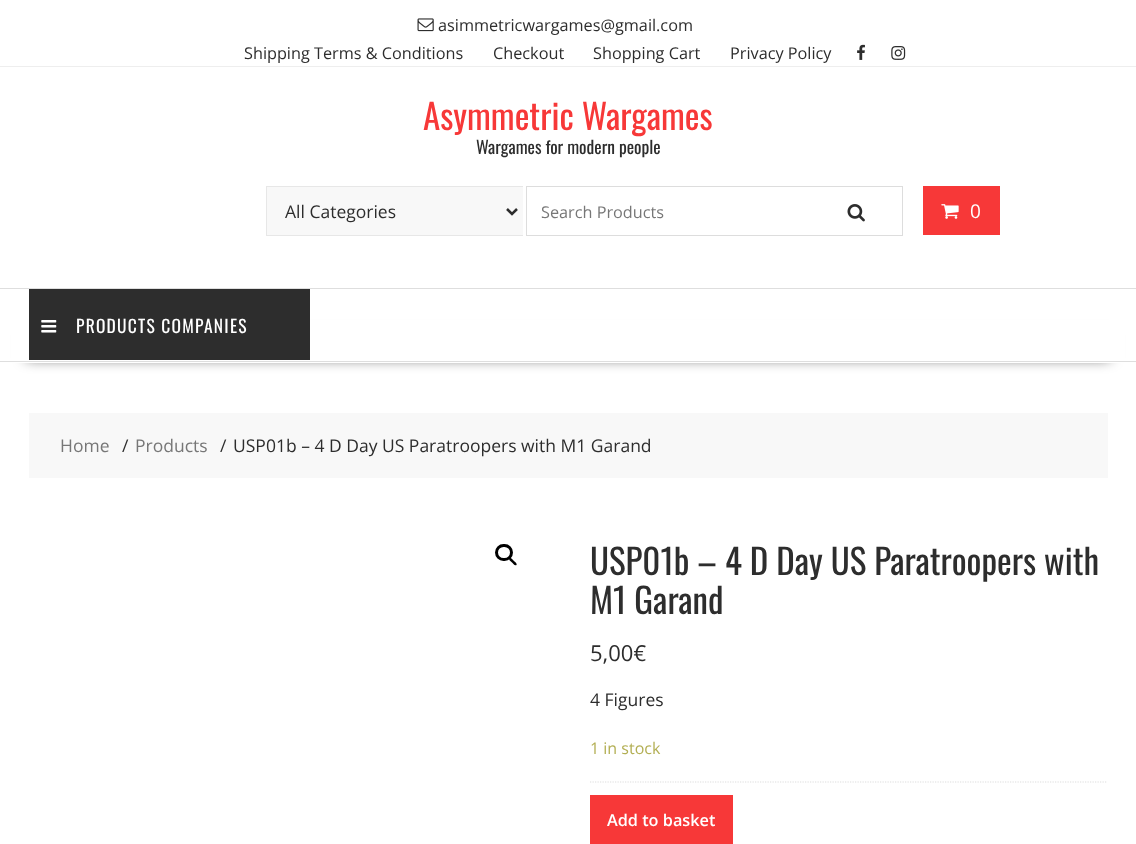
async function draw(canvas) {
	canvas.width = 1136;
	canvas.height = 844;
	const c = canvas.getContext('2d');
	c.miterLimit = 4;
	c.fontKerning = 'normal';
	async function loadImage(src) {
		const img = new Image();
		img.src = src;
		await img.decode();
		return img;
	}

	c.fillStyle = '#fff';
	c.fillRect(0, 0, 1136, 844);
	c.fillStyle = '#eee';
	c.fillRect(0, 66, 1136, 1);
	c.drawImage(await loadImage('img1.png'), 417, 18, 17, 14);
	c.font = '16.25px Open Sans';
	c.fillStyle = '#2d2d2d';
	for (const [text, x, y] of [
		['asimmetricwargames@gmail.com', 438, 31],
		['Shipping Terms & Conditions', 244, 59],
		['Checkout', 493, 59],
		['Shopping Cart', 593, 59],
		['Privacy Policy', 730, 59],
	]) {
		c.fillText(text, x, y);
	}
	c.drawImage(await loadImage('img2.png'), 857, 44, 8, 16);
	c.drawImage(await loadImage('img3.png'), 891, 46, 15, 14);
	c.font = '35px Oswald';
	c.fillStyle = '#f73838';
	c.fillText('Asymmetric Wargames', 423, 130);
	c.font = '17.5px Oswald';
	c.fillStyle = '#2d2d2d';
	c.fillText('Wargames for modern people', 476, 154);
	for (const [x, y, w, h, color] of [
		[267, 187, 256, 48, '#f8f8f8'],
		[266, 186, 257, 1, '#e7e7e7'],
		[266, 235, 257, 1, '#e7e7e7'],
		[266, 186, 1, 50, '#e7e7e7'],
	]) {
		c.fillStyle = color;
		c.fillRect(x, y, w, h);
	}
	c.beginPath();
	c.moveTo(507, 209);
	c.lineTo(512, 214);
	c.lineTo(517, 209);
	c.strokeStyle = '#2d2d2d';
	c.lineWidth = 2.5;
	c.stroke();
	c.font = '17.5px Open Sans';
	c.fillStyle = '#2d2d2d';
	c.fillText('All Categories', 285, 218);
	c.strokeStyle = '#ddd';
	c.lineWidth = 1;
	c.strokeRect(526.5, 186.5, 376, 49);
	c.font = '16.25px Open Sans';
	c.fillStyle = '#777';
	c.fillText('Search Products', 541, 218);
	c.drawImage(await loadImage('img4.png'), 847, 204, 18, 18);
	c.fillStyle = '#f73838';
	c.fillRect(923, 186, 77, 49);
	c.drawImage(await loadImage('img5.png'), 941, 204, 18, 15);
	c.font = '19px Open Sans';
	c.fillStyle = '#fff';
	c.fillText('0', 970, 218);
	c.fillStyle = '#000000bf';
	c.filter = 'blur(7px)';
	c.beginPath();
	c.rect(26, 335, 1084, 23);
	c.fill();
	c.filter = 'none';
	for (const [x, y, w, h, color] of [
		[11, 320, 1114, 43, '#fff'],
		[0, 288, 1136, 1, '#dedede'],
		[0, 361, 1136, 1, '#dedede'],
		[29, 289, 281, 71, '#2d2d2d'],
	]) {
		c.fillStyle = color;
		c.fillRect(x, y, w, h);
	}
	c.drawImage(await loadImage('img6.png'), 41, 320, 16, 13);
	c.letterSpacing = '1.25px';
	c.font = '17.5px Oswald';
	c.fillStyle = '#fff';
	c.fillText('PRODUCTS COMPANIES', 76, 333);
	c.fillStyle = '#f8f8f8';
	c.fillRect(29, 413, 1079, 65);
	c.letterSpacing = '0px';
	c.font = '17.5px Open Sans';
	c.fillStyle = '#777';
	c.fillText('Home', 60, 452);
	c.fillStyle = '#2d2d2d';
	c.fillText('/', 122, 452);
	c.fillStyle = '#777';
	c.fillText('Products', 135, 452);
	c.fillStyle = '#2d2d2d';
	c.fillText('/', 220, 452);
	c.fillText('USP01b – 4 D Day US Paratroopers with M1 Garand', 233, 452);
	c.beginPath();
	c.roundRect(496.5, 545.5, 15, 14, 7);
	c.strokeStyle = '#000';
	c.lineWidth = 3;
	c.stroke();
	c.fillStyle = '#000';
	c.beginPath();
	c.moveTo(509.5, 558);
	c.bezierCurveTo(510.5, 556.5, 513, 560, 513.5, 560.5);
	c.bezierCurveTo(514.5, 561.5, 517.5, 563.5, 516.5, 565);
	c.bezierCurveTo(515, 566.5, 512.5, 563, 512, 562.5);
	c.bezierCurveTo(511, 561.5, 508, 559.5, 509.5, 558);
	c.closePath();
	c.fill();
	c.font = '35px Oswald';
	c.fillStyle = '#2d2d2d';
	c.fillText('USP01b – 4 D Day US Paratroopers with', 590, 575);
	c.fillText('M1 Garand', 590, 614);
	c.font = '22px Open Sans';
	c.fillText('5,00€', 590, 661);
	c.font = '17.5px Open Sans';
	c.fillText('4 Figures', 590, 706);
	c.font = '16px Open Sans';
	c.fillStyle = '#b3af54';
	c.fillText('1 in stock', 590, 754);
	c.beginPath();
	c.moveTo(590, 782);
	c.lineTo(1107.5, 782);
	c.strokeStyle = '#ddd';
	c.lineWidth = 1.2;
	c.setLineDash([1.25, 1.25]);
	c.stroke();
	c.fillStyle = '#f73838';
	c.fillRect(590, 795, 143, 49);
	c.font = '600 16.25px Open Sans';
	c.fillStyle = '#fff';
	c.fillText('Add to basket', 607, 826);
}

draw(document.querySelector('canvas'));
